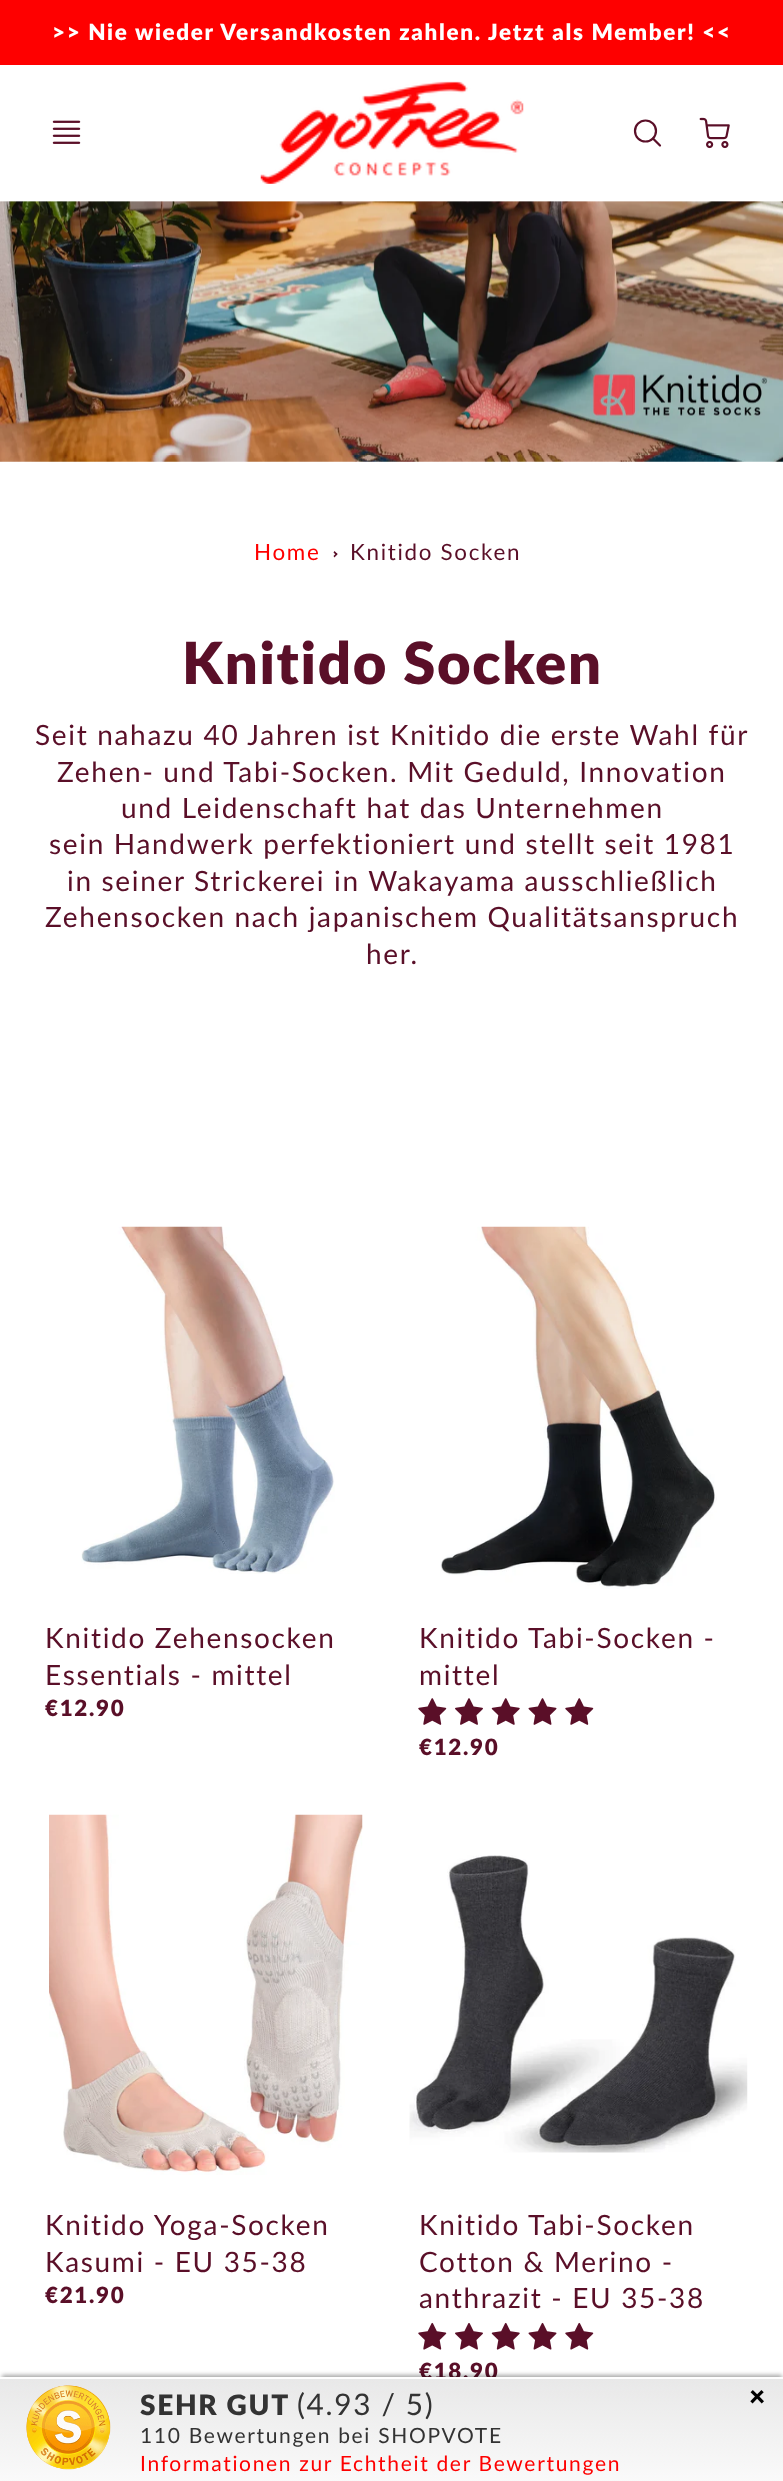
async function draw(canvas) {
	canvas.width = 783;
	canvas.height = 2481;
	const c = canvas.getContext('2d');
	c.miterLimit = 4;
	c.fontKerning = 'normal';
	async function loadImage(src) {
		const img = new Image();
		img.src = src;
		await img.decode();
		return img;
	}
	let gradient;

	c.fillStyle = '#fff';
	c.fillRect(0, 0, 783, 2481);
	c.fillStyle = '#fe0000';
	c.fillRect(0, 0, 783, 65);
	c.letterSpacing = '1.68px';
	c.font = '800 22.4px Lato';
	c.fillStyle = '#fff';
	c.fillText('>> Nie wieder Versandkosten zahlen. Jetzt als Member! <<', 52, 40);
	c.drawImage(await loadImage('img1.png'), 52, 120, 29, 24);
	c.drawImage(await loadImage('img2.png'), 260, 81, 264, 103);
	c.beginPath();
	c.arc(645.5, 131, 10.5, 0, 2 * Math.PI);
	c.strokeStyle = '#5a0f28';
	c.lineWidth = 2.2;
	c.stroke();
	c.beginPath();
	c.moveTo(660, 145.5);
	c.lineTo(653, 138.5);
	c.lineCap = 'round';
	c.lineJoin = 'round';
	c.stroke();
	c.drawImage(await loadImage('img3.png'), 699, 117, 31, 32);
	c.drawImage(await loadImage('img4.png'), 0, 201, 783, 261);
	c.font = '22.4px Lato';
	c.fillStyle = '#fe0000';
	c.fillText('Home', 254, 560);
	c.fillStyle = '#5a0f28';
	c.beginPath();
	c.moveTo(334.5, 551);
	c.lineTo(337.5, 554);
	c.lineTo(336.5, 555.5);
	c.lineTo(333.5, 552.5);
	c.closePath();
	c.fill();
	c.beginPath();
	c.moveTo(336.5, 553);
	c.lineTo(337.5, 554);
	c.lineTo(334.5, 557.5);
	c.lineTo(333.5, 556);
	c.closePath();
	c.fill();
	c.fillText('Knitido Socken', 350, 560);
	c.font = '800 58px Lato';
	c.fillText('Knitido Socken', 182, 684);
	c.font = '28px Lato';
	for (const [text, x, y] of [
		['Seit nahazu 40 Jahren ist Knitido die erste Wahl für', 35, 745],
		['Zehen- und Tabi-Socken. Mit Geduld, Innovation', 57, 782],
		['und Leidenschaft hat das Unternehmen', 121, 818],
		['sein Handwerk perfektioniert und stellt seit 1981', 49, 854],
		['in seiner Strickerei in Wakayama ausschließlich', 67, 891],
		['Zehensocken nach japanischem Qualitätsanspruch', 45, 927],
		['her.', 366, 964],
	]) {
		c.fillText(text, x, y);
	}
	c.drawImage(await loadImage('img5.png'), 81, 1226, 254, 348);
	c.fillText('Knitido Zehensocken', 45, 1648);
	c.fillText('Essentials - mittel', 45, 1685);
	c.font = '800 22.4px Lato';
	c.fillText('€12.90', 45, 1716);
	c.drawImage(await loadImage('img6.png'), 440, 1226, 277, 363);
	c.font = '28px Lato';
	c.fillText('Knitido Tabi-Socken -', 419, 1648);
	c.fillText('mittel', 419, 1685);
	c.drawImage(await loadImage('img7.png'), 418, 1698, 29, 27);
	c.drawImage(await loadImage('img8.png'), 455, 1698, 28, 27);
	c.drawImage(await loadImage('img9.png'), 491, 1698, 29, 27);
	c.drawImage(await loadImage('img10.png'), 528, 1698, 29, 27);
	c.drawImage(await loadImage('img7.png'), 565, 1698, 29, 27);
	c.font = '800 22.4px Lato';
	c.fillText('€12.90', 419, 1755);
	c.drawImage(await loadImage('img11.png'), 49, 1814, 314, 361);
	c.font = '28px Lato';
	c.fillText('Knitido Yoga-Socken', 45, 2235);
	c.fillText('Kasumi - EU 35-38', 45, 2272);
	c.font = '800 22.4px Lato';
	c.fillText('€21.90', 45, 2303);
	c.drawImage(await loadImage('img12.png'), 409, 1855, 339, 298);
	c.font = '28px Lato';
	for (const [text, x, y] of [
		['Knitido Tabi-Socken', 419, 2235],
		['Cotton & Merino -', 419, 2272],
		['anthrazit - EU 35-38', 419, 2308],
	]) {
		c.fillText(text, x, y);
	}
	c.drawImage(await loadImage('img13.png'), 418, 2322, 29, 28);
	c.drawImage(await loadImage('img14.png'), 455, 2323, 28, 27);
	c.drawImage(await loadImage('img15.png'), 491, 2322, 29, 28);
	c.drawImage(await loadImage('img16.png'), 528, 2322, 29, 28);
	c.drawImage(await loadImage('img13.png'), 565, 2322, 29, 28);
	c.font = '800 22.4px Lato';
	c.fillText('€18.90', 419, 2379);
	c.fillStyle = '#00000059';
	c.filter = 'blur(2px)';
	c.beginPath();
	c.rect(2, 2375, 780, 101);
	c.fill();
	c.filter = 'none';
	gradient = c.createLinearGradient(392, 2378, 392, 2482);
	gradient.addColorStop(0, '#f0f0f0');
	gradient.addColorStop(0, '#e8e8e8');
	gradient.addColorStop(1, '#fafafa');
	c.fillStyle = gradient;
	c.fillRect(0, 2379, 783, 102);
	c.fillStyle = '#fff';
	c.fillRect(0, 2377, 783, 2);
	c.drawImage(await loadImage('img17.png'), 26, 2385, 85, 85);
	c.font = '800 28px Lato';
	c.fillStyle = '#333';
	c.fillText('SEHR GUT', 140, 2415);
	c.font = '29.75px Lato';
	c.fillText('(4.93 / 5)', 297, 2415);
	c.font = '21px Lato';
	c.fillText('110 Bewertungen bei SHOPVOTE', 140, 2443);
	c.fillStyle = '#fe0000';
	c.fillText('Informationen zur Echtheit der Bewertungen', 140, 2471);
	c.font = '800 28px Lato';
	c.fillStyle = '#000';
	c.fillText('×', 749, 2406);
}

draw(document.querySelector('canvas'));
